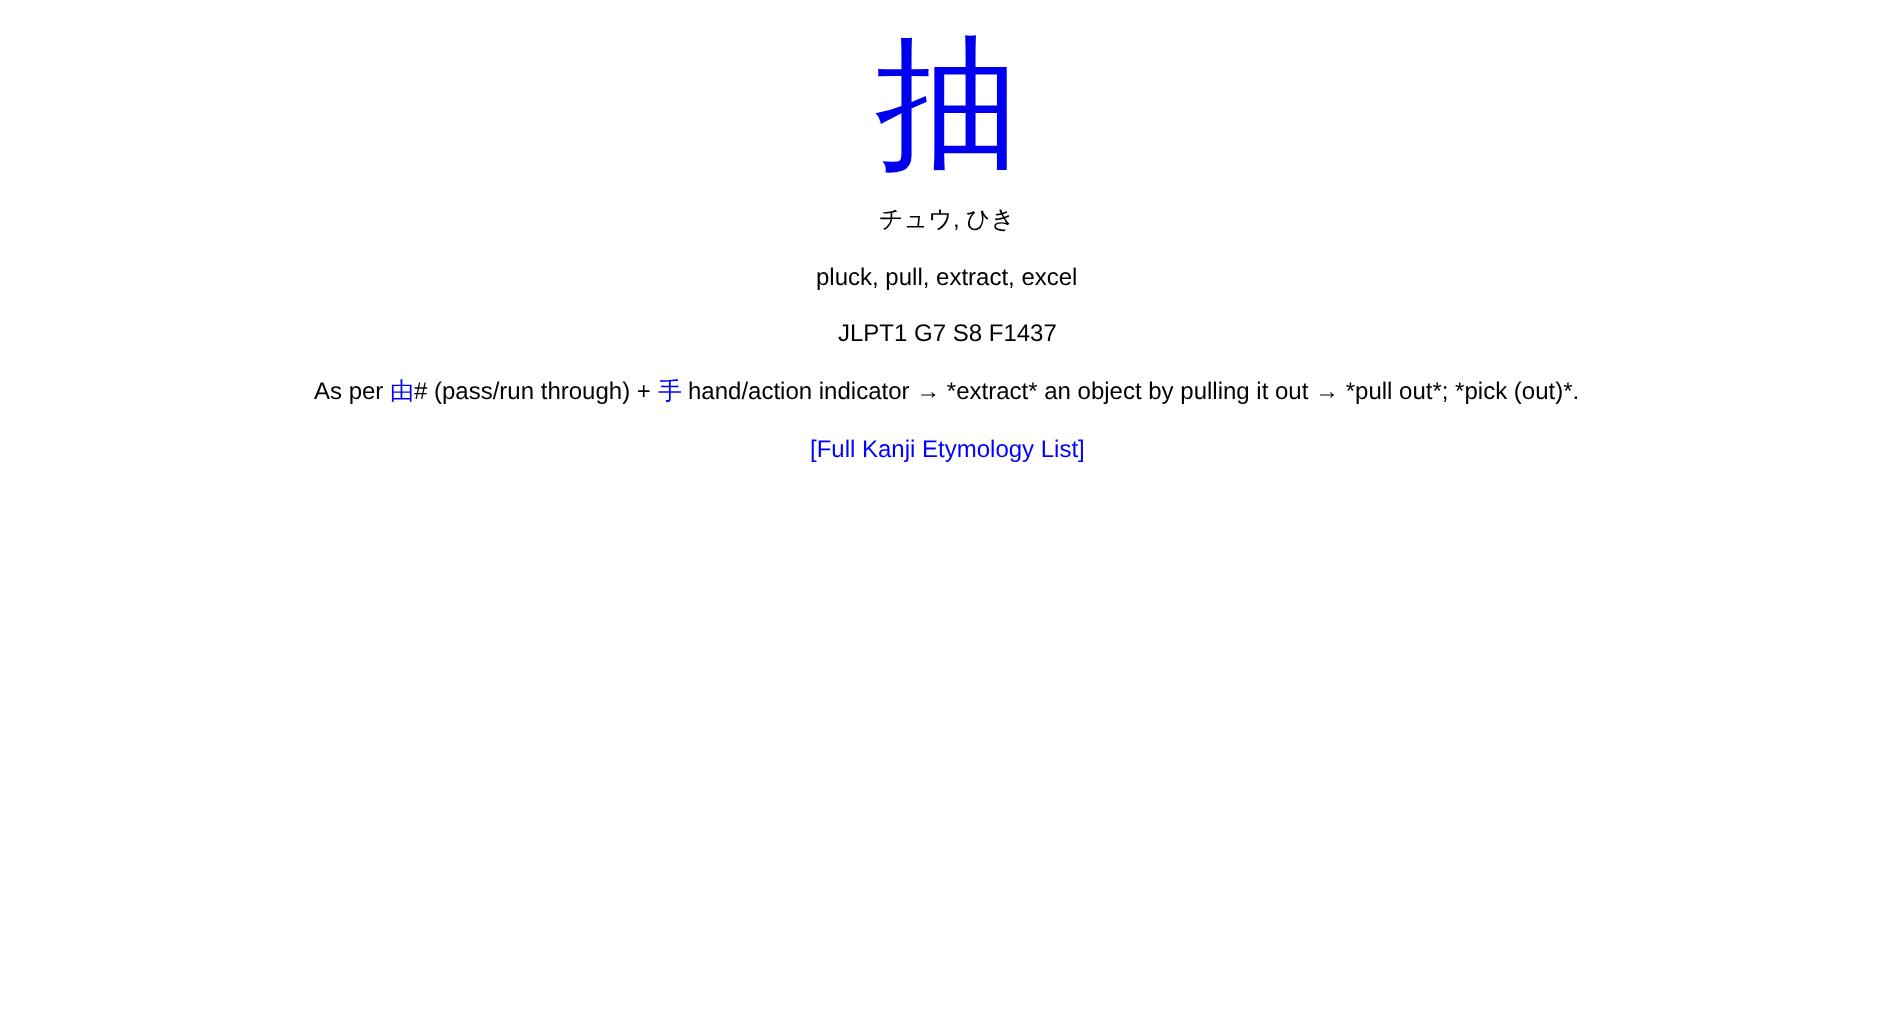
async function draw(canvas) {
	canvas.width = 1894;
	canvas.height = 1036;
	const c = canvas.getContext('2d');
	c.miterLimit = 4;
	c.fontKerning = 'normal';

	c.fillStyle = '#fff';
	c.fillRect(0, 0, 1894, 1036);
	c.font = '500 144px WenQuanYi Zen Hei';
	c.fillStyle = '#00e';
	c.fillText('抽', 875, 153);
	c.font = '500 24px WenQuanYi Zen Hei';
	c.fillStyle = '#000';
	c.fillText('チュウ', 879, 227);
	c.font = '24px Liberation Sans';
	c.fillText(',', 953, 227);
	c.font = '500 24px WenQuanYi Zen Hei';
	c.fillText('ひき', 966, 227);
	c.font = '24px Liberation Sans';
	for (const [text, x, y] of [
		['pluck, pull, extract, excel', 816, 285],
		['JLPT1 G7 S8 F1437', 838, 341],
		['As per', 314, 399],
	]) {
		c.fillText(text, x, y);
	}
	c.font = '500 24px WenQuanYi Zen Hei';
	c.fillStyle = '#00e';
	c.fillText('由', 390, 399);
	c.font = '24px Liberation Sans';
	c.fillStyle = '#000';
	c.fillText('# (pass/run through) +', 414, 399);
	c.font = '500 24px WenQuanYi Zen Hei';
	c.fillStyle = '#00e';
	c.fillText('手', 658, 399);
	c.font = '24px Liberation Sans';
	c.fillStyle = '#000';
	c.fillText('hand/action indicator → *extract* an object by pulling it out → *pull out*; *pick (out)*.', 688, 399);
	c.fillStyle = '#00f';
	c.fillText('[Full Kanji Etymology List]', 810, 457);
}

draw(document.querySelector('canvas'));
